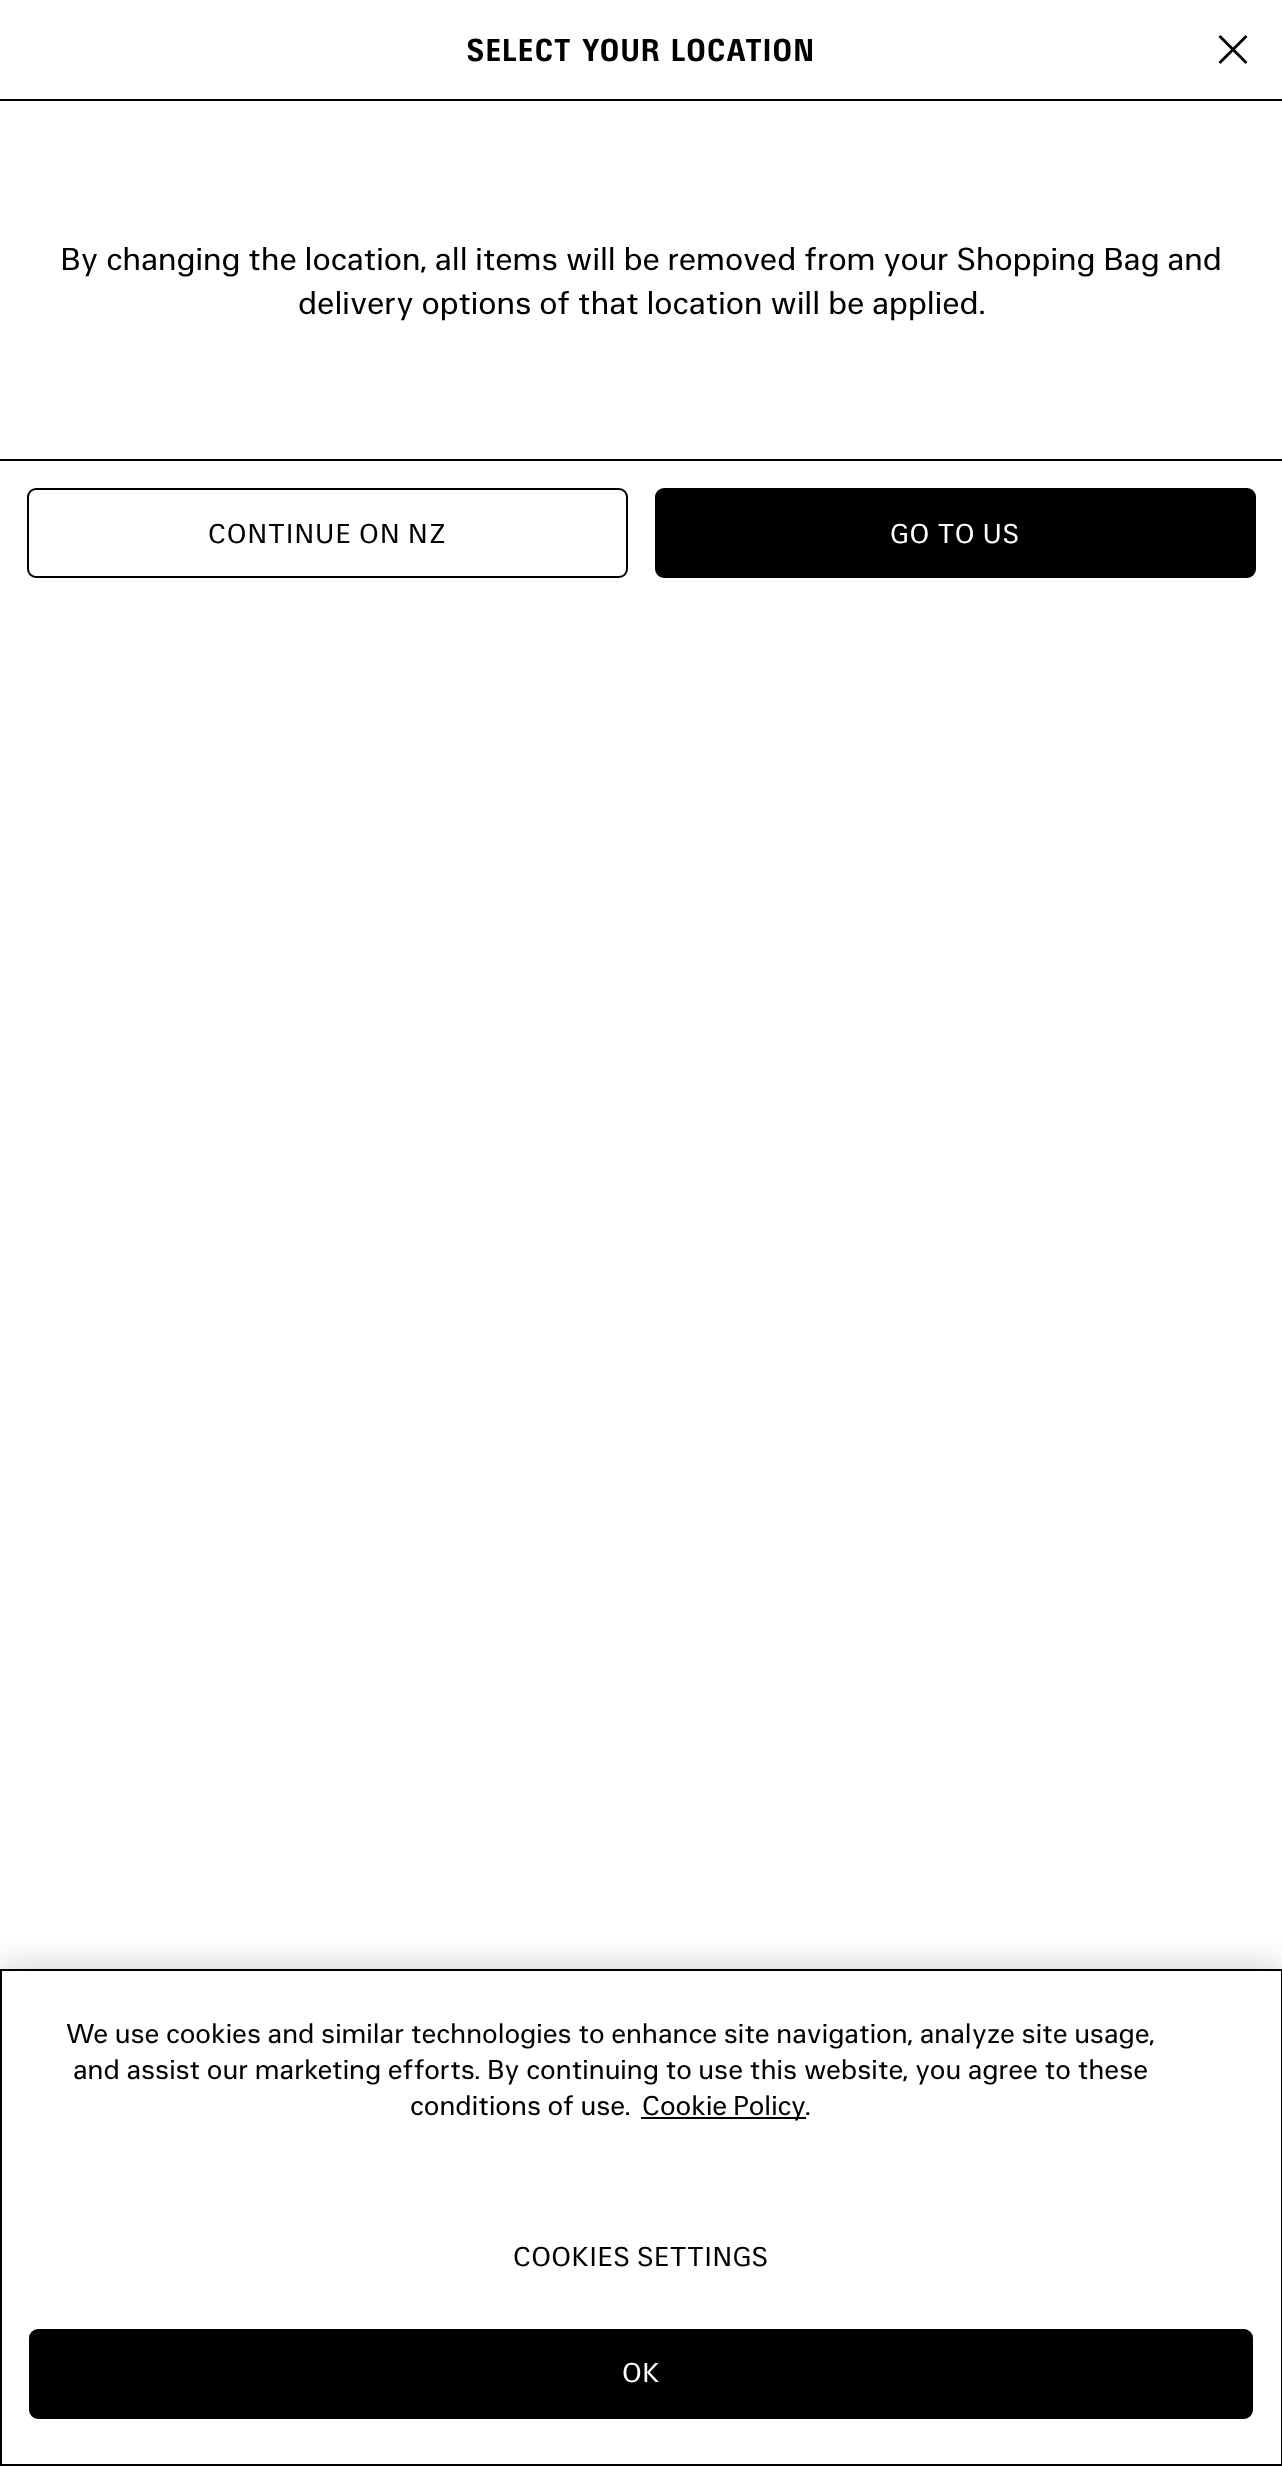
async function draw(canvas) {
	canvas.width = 1282;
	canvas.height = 2466;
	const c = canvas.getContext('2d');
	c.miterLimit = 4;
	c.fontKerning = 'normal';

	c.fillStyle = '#fff';
	c.fillRect(0, 0, 1282, 2466);
	c.fillStyle = '#000';
	c.fillRect(0, 99, 1282, 2);
	c.letterSpacing = '0.9px';
	c.font = 'bold 31.5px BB';
	c.fillText('SELECT YOUR LOCATION', 466, 61);
	c.beginPath();
	c.moveTo(1245.5, 35);
	c.lineTo(1247.5, 37);
	c.lineTo(1220.5, 64);
	c.lineTo(1218.5, 62);
	c.closePath();
	c.fill('evenodd');
	c.beginPath();
	c.moveTo(1220.5, 35);
	c.lineTo(1247.5, 62);
	c.lineTo(1245.5, 64);
	c.lineTo(1218.5, 37);
	c.closePath();
	c.fill('evenodd');
	c.letterSpacing = '0px';
	c.font = '31.5px BB';
	c.fillText('By changing the location, all items will be removed from your Shopping Bag and', 60, 270);
	c.fillText('delivery options of that location will be applied.', 298, 314);
	c.fillRect(0, 459, 1282, 2);
	c.beginPath();
	c.roundRect(28, 489, 599, 88, 8);
	c.strokeStyle = '#000';
	c.lineWidth = 2;
	c.stroke();
	c.letterSpacing = '0.75px';
	c.font = '27px BB';
	c.fillText('CONTINUE ON NZ', 208, 543);
	c.beginPath();
	c.roundRect(656, 489, 599, 88, 8);
	c.fill();
	c.stroke();
	c.fillStyle = '#fff';
	c.fillText('GO TO US', 890, 543);
	c.save();
	c.beginPath();
	c.rect(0, 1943, 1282, 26);
	c.clip();
	c.fillStyle = '#00000033';
	c.filter = 'blur(20px)';
	c.beginPath();
	c.rect(0, 1969, 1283, 497);
	c.fill();
	c.filter = 'none';
	c.restore();
	c.strokeRect(1, 1970, 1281, 495);
	c.letterSpacing = '0px';
	c.fillStyle = '#000';
	for (const [text, x, y] of [
		['We use cookies and similar technologies to enhance site navigation, analyze site usage,', 66, 2043],
		['and assist our marketing efforts. By continuing to use this website, you agree to these', 73, 2079],
		['conditions of use.', 410, 2115],
	]) {
		c.fillText(text, x, y);
	}
	c.fillRect(641, 2117, 165, 2);
	c.wordSpacing = '-1px';
	c.fillText('Cookie Policy', 642, 2115);
	c.wordSpacing = '0px';
	c.fillText('.', 805, 2115);
	c.letterSpacing = '0.25px';
	c.fillText('COOKIES SETTINGS', 513, 2266);
	c.beginPath();
	c.roundRect(30, 2330, 1222, 88, 8);
	c.fill();
	c.stroke();
	c.fillStyle = '#fff';
	c.fillText('OK', 622, 2382);
}

draw(document.querySelector('canvas'));
